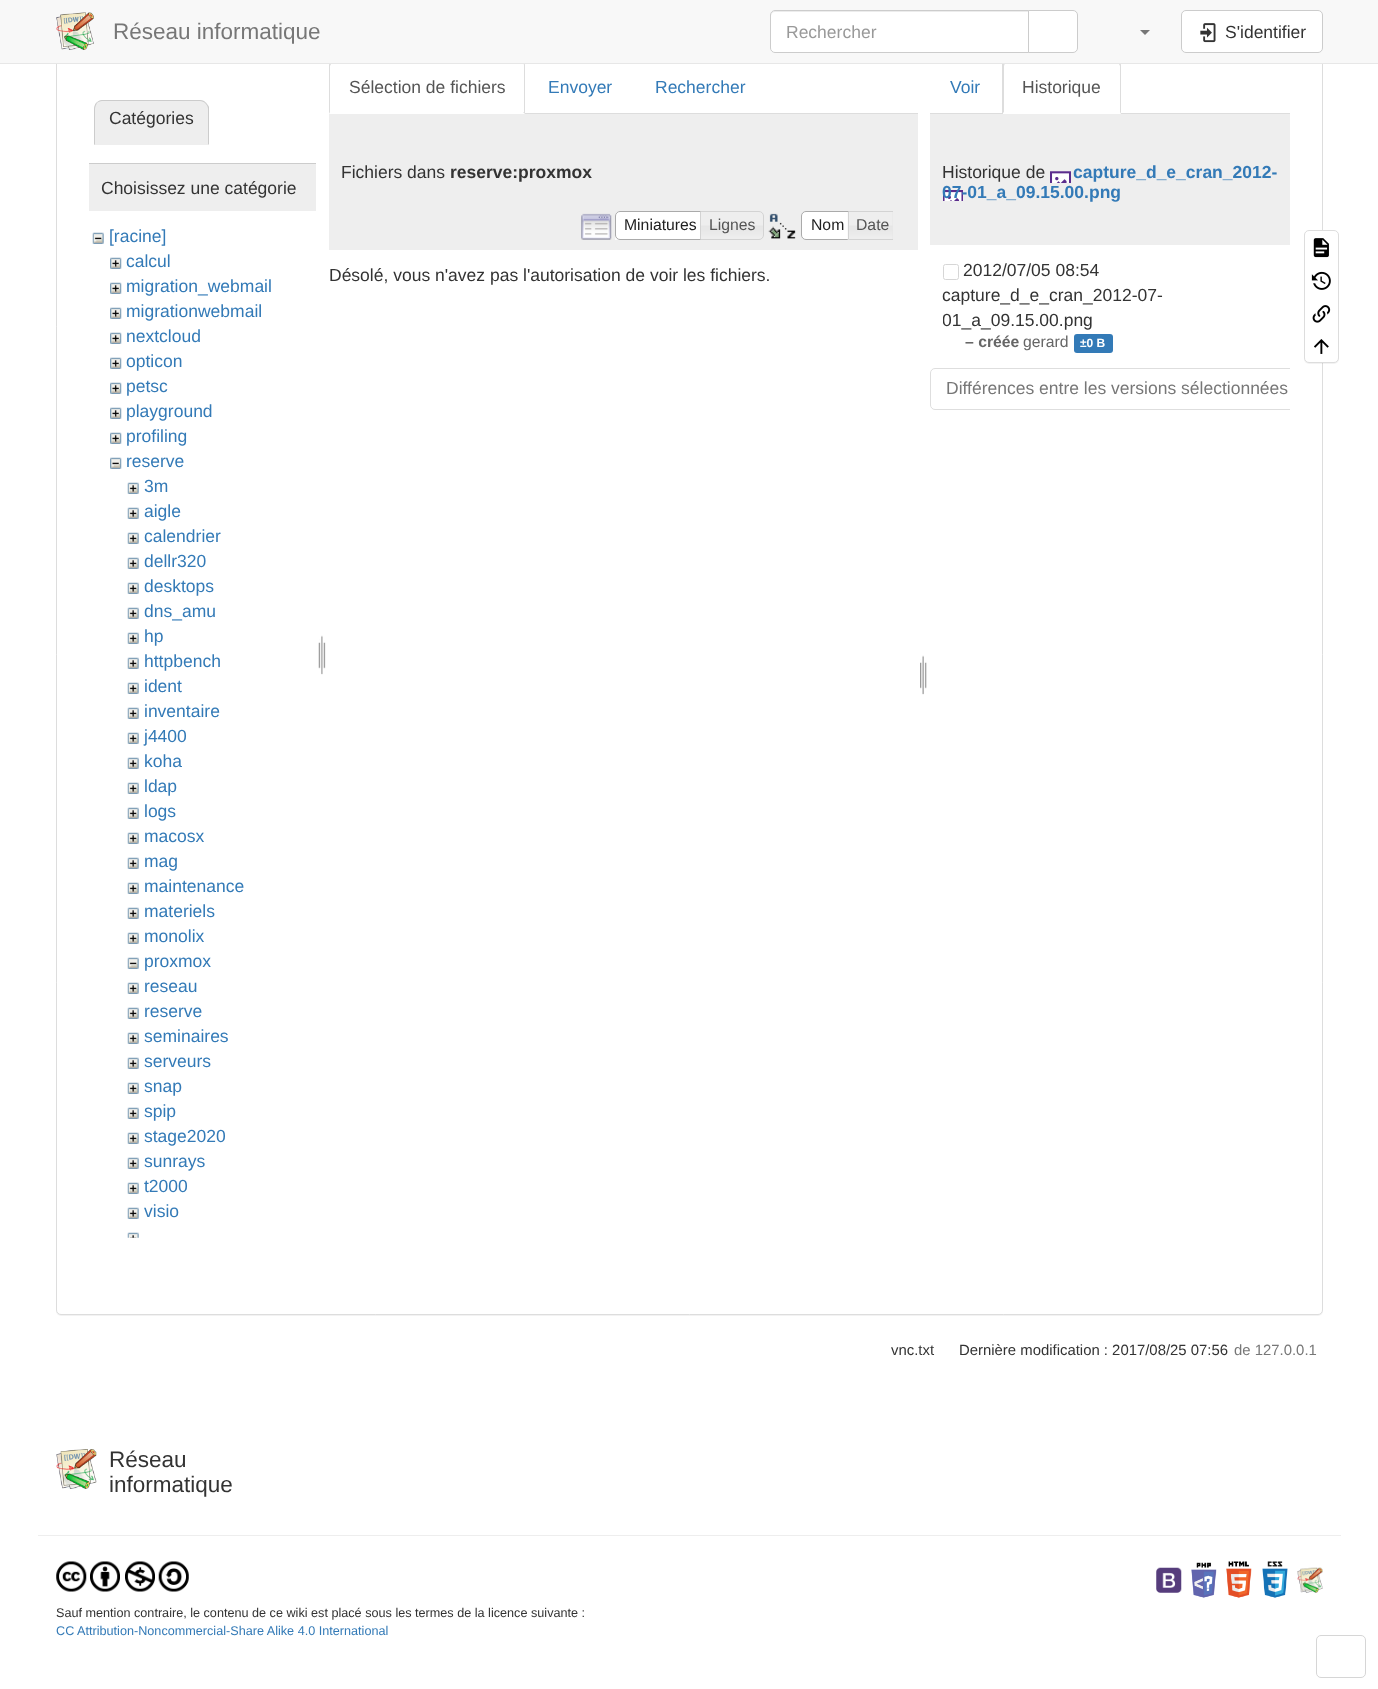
async function draw(canvas) {
	canvas.width = 1378;
	canvas.height = 1689;
	const c = canvas.getContext('2d');
	c.miterLimit = 4;
	c.fontKerning = 'normal';
	async function loadImage(src) {
		const img = new Image();
		img.src = src;
		await img.decode();
		return img;
	}

	c.fillStyle = '#fff';
	c.fillRect(0, 0, 1378, 1689);
	c.fillStyle = '#0000000d';
	c.filter = 'blur(0.5px)';
	c.beginPath();
	c.roundRect(56, -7, 1267, 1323, 5);
	c.fill();
	c.filter = 'none';
	c.fillStyle = '#fff';
	c.beginPath();
	c.roundRect(56.5, -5.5, 1266, 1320, 4.5);
	c.fill();
	c.strokeStyle = '#ddd';
	c.stroke();
	c.fillStyle = '#ddd';
	c.fillRect(930, 113, 360, 1);
	c.fillStyle = '#fff';
	c.beginPath();
	c.roundRect(1003, 61, 118, 53, [5, 5, 0, 0]);
	c.fill();
	c.fillStyle = '#ddd';
	c.beginPath();
	c.moveTo(1002, 114);
	c.lineTo(1002, 64);
	c.lineTo(1004, 62);
	c.lineTo(1005, 63);
	c.lineTo(1004, 66);
	c.lineTo(1004, 112);
	c.closePath();
	c.fill();
	c.fillStyle = '#f8f8f8';
	c.fillRect(0, 0, 1378, 63);
	c.fillStyle = '#ddd';
	c.beginPath();
	c.moveTo(525, 114);
	c.lineTo(525, 66);
	c.bezierCurveTo(525, 65, 525, 63, 524, 63);
	c.lineTo(523, 63);
	c.bezierCurveTo(524, 64, 524, 65, 524, 66);
	c.lineTo(524, 112);
	c.lineTo(523, 112);
	c.closePath();
	c.fill();
	c.beginPath();
	c.moveTo(329, 114);
	c.lineTo(329, 66);
	c.bezierCurveTo(329, 65, 329, 63, 330, 63);
	c.lineTo(331, 64);
	c.lineTo(330, 66);
	c.lineTo(330, 112);
	c.closePath();
	c.fill();
	c.beginPath();
	c.moveTo(1120, 63);
	c.bezierCurveTo(1121, 63, 1121, 65, 1121, 66);
	c.lineTo(1121, 114);
	c.lineTo(1120, 112);
	c.lineTo(1120, 66);
	c.lineTo(1119, 64);
	c.closePath();
	c.fill();
	c.fillStyle = '#e7e7e7';
	c.fillRect(0, 63, 1378, 1);
	c.drawImage(await loadImage('img1.png'), 56, 12, 38, 38);
	c.font = '22.5px Liberation Sans';
	c.fillStyle = '#777';
	c.fillText('Réseau informatique', 113, 39);
	c.fillStyle = '#fff';
	c.beginPath();
	c.roundRect(770, 10, 259, 43, [5, 0, 0, 5]);
	c.fill();
	c.fillStyle = '#ececec';
	c.beginPath();
	c.moveTo(775, 12);
	c.lineTo(1028, 12);
	c.lineTo(1028, 11);
	c.lineTo(775, 11);
	c.bezierCurveTo(773, 11, 771, 13, 771, 15);
	c.lineTo(771, 16);
	c.bezierCurveTo(771, 14, 773, 12, 775, 12);
	c.closePath();
	c.fill();
	c.beginPath();
	c.roundRect(770.5, 10.5, 258, 42, [4.5, 0, 0, 4.5]);
	c.strokeStyle = '#ccc';
	c.stroke();
	c.font = '17.5px Liberation Sans';
	c.fillStyle = '#999';
	c.fillText('Rechercher', 786, 38);
	c.fillStyle = '#fff';
	c.beginPath();
	c.roundRect(1028.5, 10.5, 49, 42, [0, 4.5, 4.5, 0]);
	c.fill();
	c.stroke();
	c.fillStyle = '#777';
	c.beginPath();
	c.moveTo(1140, 30);
	c.lineTo(1150, 30);
	c.lineTo(1145, 35);
	c.closePath();
	c.fill();
	c.fillStyle = '#fff';
	c.beginPath();
	c.roundRect(1181.5, 10.5, 141, 42, 4.5);
	c.fill();
	c.stroke();
	c.drawImage(await loadImage('img2.png'), 1200, 23, 16, 20);
	c.fillStyle = '#333';
	c.fillText('S\'identifier', 1225, 38);
	c.fillStyle = '#eee';
	c.beginPath();
	c.roundRect(94, 100, 115, 45, [9, 9, 0, 0]);
	c.fill();
	c.fillStyle = '#ccc';
	c.beginPath();
	c.moveTo(102, 100);
	c.bezierCurveTo(100, 100, 98, 101, 96, 103);
	c.lineTo(97, 103);
	c.bezierCurveTo(98, 102, 100, 101, 102, 101);
	c.lineTo(200, 101);
	c.bezierCurveTo(202, 101, 204, 102, 205, 103);
	c.lineTo(206, 103);
	c.bezierCurveTo(205, 101, 202, 100, 200, 100);
	c.closePath();
	c.fill();
	c.beginPath();
	c.moveTo(209, 107);
	c.lineTo(209, 145);
	c.lineTo(208, 144);
	c.lineTo(208, 109);
	c.bezierCurveTo(208, 107, 207, 105, 205, 103);
	c.lineTo(206, 103);
	c.bezierCurveTo(207, 104, 208, 105, 209, 107);
	c.closePath();
	c.fill();
	c.fillStyle = '#eee';
	c.beginPath();
	c.moveTo(209, 145);
	c.lineTo(208, 144);
	c.lineTo(95, 144);
	c.lineTo(94, 145);
	c.closePath();
	c.fill();
	c.fillStyle = '#ccc';
	c.beginPath();
	c.moveTo(96, 103);
	c.bezierCurveTo(95, 104, 94, 107, 94, 109);
	c.lineTo(94, 145);
	c.lineTo(95, 144);
	c.lineTo(95, 109);
	c.bezierCurveTo(95, 107, 96, 105, 97, 103);
	c.closePath();
	c.fill();
	c.fillStyle = '#333';
	c.fillText('Catégories', 109, 124);
	c.fillStyle = '#eee';
	c.fillRect(89, 164, 227, 47);
	c.fillStyle = '#ccc';
	c.fillRect(89, 163, 227, 1);
	c.fillStyle = '#333';
	c.fillText('Choisissez une catégorie', 101, 194);
	c.drawImage(await loadImage('img3.png'), 92, 232, 12, 12);
	c.fillStyle = '#337ab7';
	c.fillText('[racine]', 109, 242);
	c.drawImage(await loadImage('img4.png'), 110, 257, 12, 12);
	c.fillText('calcul', 126, 267);
	c.drawImage(await loadImage('img4.png'), 110, 282, 12, 12);
	c.fillText('migration_webmail', 126, 292);
	c.drawImage(await loadImage('img4.png'), 110, 307, 12, 12);
	c.fillText('migrationwebmail', 126, 317);
	c.drawImage(await loadImage('img4.png'), 110, 332, 12, 12);
	c.fillText('nextcloud', 126, 342);
	c.drawImage(await loadImage('img4.png'), 110, 357, 12, 12);
	c.fillText('opticon', 126, 367);
	c.drawImage(await loadImage('img4.png'), 110, 382, 12, 12);
	c.fillText('petsc', 126, 392);
	c.drawImage(await loadImage('img4.png'), 110, 407, 12, 12);
	c.fillText('playground', 126, 417);
	c.drawImage(await loadImage('img4.png'), 110, 432, 12, 12);
	c.fillText('profiling', 126, 442);
	c.drawImage(await loadImage('img5.png'), 110, 457, 12, 12);
	c.fillText('reserve', 126, 467);
	c.drawImage(await loadImage('img6.png'), 127, 482, 12, 12);
	c.fillText('3m', 144, 492);
	c.drawImage(await loadImage('img7.png'), 127, 507, 12, 12);
	c.fillText('aigle', 144, 517);
	c.drawImage(await loadImage('img6.png'), 127, 532, 12, 12);
	c.fillText('calendrier', 144, 542);
	c.drawImage(await loadImage('img6.png'), 127, 557, 12, 12);
	c.fillText('dellr320', 144, 567);
	c.drawImage(await loadImage('img6.png'), 127, 582, 12, 12);
	c.fillText('desktops', 144, 592);
	c.drawImage(await loadImage('img6.png'), 127, 607, 12, 12);
	c.fillText('dns_amu', 144, 617);
	c.drawImage(await loadImage('img6.png'), 127, 632, 12, 12);
	c.fillText('hp', 144, 642);
	c.drawImage(await loadImage('img6.png'), 127, 657, 12, 12);
	c.fillText('httpbench', 144, 667);
	c.drawImage(await loadImage('img6.png'), 127, 682, 12, 12);
	c.fillText('ident', 144, 692);
	c.drawImage(await loadImage('img6.png'), 127, 707, 12, 12);
	c.fillText('inventaire', 144, 717);
	c.drawImage(await loadImage('img6.png'), 127, 732, 12, 12);
	c.fillText('j4400', 144, 742);
	c.drawImage(await loadImage('img7.png'), 127, 757, 12, 12);
	c.fillText('koha', 144, 767);
	c.drawImage(await loadImage('img6.png'), 127, 782, 12, 12);
	c.fillText('ldap', 144, 792);
	c.drawImage(await loadImage('img6.png'), 127, 807, 12, 12);
	c.fillText('logs', 144, 817);
	c.drawImage(await loadImage('img6.png'), 127, 832, 12, 12);
	c.fillText('macosx', 144, 842);
	c.drawImage(await loadImage('img6.png'), 127, 857, 12, 12);
	c.fillText('mag', 144, 867);
	c.drawImage(await loadImage('img6.png'), 127, 882, 12, 12);
	c.fillText('maintenance', 144, 892);
	c.drawImage(await loadImage('img7.png'), 127, 907, 12, 12);
	c.fillText('materiels', 144, 917);
	c.drawImage(await loadImage('img6.png'), 127, 932, 12, 12);
	c.fillText('monolix', 144, 942);
	c.drawImage(await loadImage('img3.png'), 127, 957, 12, 12);
	c.fillText('proxmox', 144, 967);
	c.drawImage(await loadImage('img6.png'), 127, 982, 12, 12);
	c.fillText('reseau', 144, 992);
	c.drawImage(await loadImage('img6.png'), 127, 1007, 12, 12);
	c.fillText('reserve', 144, 1017);
	c.drawImage(await loadImage('img6.png'), 127, 1032, 12, 12);
	c.fillText('seminaires', 144, 1042);
	c.drawImage(await loadImage('img6.png'), 127, 1057, 12, 12);
	c.fillText('serveurs', 144, 1067);
	c.drawImage(await loadImage('img6.png'), 127, 1082, 12, 12);
	c.fillText('snap', 144, 1092);
	c.drawImage(await loadImage('img6.png'), 127, 1107, 12, 12);
	c.fillText('spip', 144, 1117);
	c.drawImage(await loadImage('img6.png'), 127, 1132, 12, 12);
	c.fillText('stage2020', 144, 1142);
	c.drawImage(await loadImage('img6.png'), 127, 1157, 12, 12);
	c.fillText('sunrays', 144, 1167);
	c.drawImage(await loadImage('img6.png'), 127, 1182, 12, 12);
	c.fillText('t2000', 144, 1192);
	c.drawImage(await loadImage('img6.png'), 127, 1207, 12, 12);
	c.fillText('visio', 144, 1217);
	c.drawImage(await loadImage('img8.png'), 127, 1232, 12, 6);
	c.drawImage(await loadImage('img9.png'), 318, 635, 8, 40);
	c.fillStyle = '#ddd';
	c.fillRect(525, 113, 393, 1);
	c.fillStyle = '#555';
	c.fillText('Sélection de fichiers', 349, 93);
	c.fillStyle = '#337ab7';
	c.fillText('Envoyer', 548, 93);
	c.fillText('Rechercher', 655, 93);
	c.fillStyle = '#eee';
	c.fillRect(329, 114, 589, 136);
	c.fillStyle = '#333';
	c.fillText('Fichiers dans', 341, 178);
	c.font = 'bold 17.5px Liberation Sans';
	c.fillText('reserve:proxmox', 450, 178);
	c.drawImage(await loadImage('img10.png'), 581, 213, 31, 27);
	c.fillStyle = '#fff';
	c.beginPath();
	c.roundRect(615, 211, 91, 29, [5, 0, 0, 5]);
	c.fill();
	c.fillStyle = '#ffffffba';
	c.fillRect(615, 237, 3, 3);
	c.beginPath();
	c.roundRect(615.5, 211.5, 90, 28, [4.5, 0, 0, 4.5]);
	c.strokeStyle = '#aaa';
	c.stroke();
	c.font = '15.75px Liberation Sans';
	c.fillStyle = '#212121';
	c.fillText('Miniatures', 624, 230);
	c.drawImage(await loadImage('img11.png'), 701, 212, 63, 28);
	c.beginPath();
	c.roundRect(700.5, 211.5, 63, 28, [0, 4.5, 4.5, 0]);
	c.strokeStyle = '#d3d3d3';
	c.stroke();
	c.fillStyle = '#555';
	c.fillText('Lignes', 709, 230);
	c.drawImage(await loadImage('img12.png'), 768, 213, 28, 26);
	c.fillStyle = '#fff';
	c.beginPath();
	c.roundRect(801.5, 211.5, 52, 28, [4.5, 0, 0, 4.5]);
	c.fill();
	c.strokeStyle = '#aaa';
	c.stroke();
	c.fillStyle = '#212121';
	c.fillText('Nom', 811, 230);
	c.fillStyle = '#e6e6e6';
	c.fillRect(892, 212, 1, 27);
	c.drawImage(await loadImage('img13.png'), 847, 212, 46, 28);
	c.save();
	c.beginPath();
	c.rect(571, 211, 322, 29);
	c.clip();
	c.beginPath();
	c.roundRect(848.5, 211.5, 50, 28, [0, 4.5, 4.5, 0]);
	c.strokeStyle = '#d3d3d3';
	c.stroke();
	c.restore();
	c.fillStyle = '#555';
	c.fillText('Date', 856, 230);
	c.font = '17.5px Liberation Sans';
	c.fillStyle = '#333';
	c.fillText('Désolé, vous n\'avez pas l\'autorisation de voir les fichiers.', 329, 281);
	c.drawImage(await loadImage('img14.png'), 920, 655, 7, 40);
	c.fillStyle = '#337ab7';
	c.fillText('Voir', 950, 93);
	c.fillStyle = '#555';
	c.fillText('Historique', 1022, 93);
	c.fillStyle = '#eee';
	c.fillRect(930, 114, 360, 131);
	c.fillStyle = '#333';
	c.fillText('Historique de', 942, 178);
	c.font = 'bold 17.5px Liberation Sans';
	c.fillStyle = '#337ab7';
	c.fillText('capture_d_e_cran_2012-', 1073, 178);
	c.drawImage(await loadImage('img15.png'), 943, 171, 128, 30);
	c.fillText('07-01_a_09.15.00.png', 942, 198);
	c.beginPath();
	c.roundRect(943.5, 264.5, 15, 15, 2);
	c.strokeStyle = '#d6d6d6';
	c.stroke();
	c.font = '17.5px Liberation Sans';
	c.fillStyle = '#333';
	c.fillText('2012/07/05 08:54', 963, 276);
	c.fillText('capture_d_e_cran_2012-07-', 942, 301);
	c.save();
	c.beginPath();
	c.rect(943, 258, 347, 97);
	c.clip();
	c.fillText('01_a_09.15.00.png', 942, 326);
	c.restore();
	c.font = 'bold 15.75px Liberation Sans';
	c.fillStyle = '#666';
	c.fillText('– créée', 965, 347);
	c.font = '15.75px Liberation Sans';
	c.fillText('gerard', 1023, 347);
	c.fillStyle = '#337ab7';
	c.beginPath();
	c.roundRect(1074, 334, 39, 19, 3);
	c.fill();
	c.font = 'bold 12px Liberation Sans';
	c.fillStyle = '#fff';
	c.fillText('±0 B', 1080, 347);
	c.save();
	c.beginPath();
	c.rect(930, 258, 360, 1013);
	c.clip();
	c.beginPath();
	c.roundRect(930.5, 368.5, 373, 41, 4.5);
	c.strokeStyle = '#dedede';
	c.stroke();
	c.restore();
	c.font = '17.5px Liberation Sans';
	c.fillStyle = '#777';
	c.fillText('Différences entre les versions sélectionnées', 946, 394);
	c.fillStyle = '#0000000d';
	c.filter = 'blur(0.5px)';
	c.beginPath();
	c.roundRect(1304, 231, 35, 133, 5);
	c.fill();
	c.filter = 'none';
	c.fillStyle = '#fff';
	c.beginPath();
	c.roundRect(1304.5, 230.5, 34, 132, 4.5);
	c.fill();
	c.strokeStyle = '#ddd';
	c.stroke();
	c.drawImage(await loadImage('img16.png'), 1313, 238, 16, 20);
	c.drawImage(await loadImage('img17.png'), 1311, 271, 20, 19);
	c.drawImage(await loadImage('img18.png'), 1312, 305, 19, 18);
	c.drawImage(await loadImage('img19.png'), 1314, 339, 15, 15);
	c.font = '14.9px Liberation Sans';
	c.fillStyle = '#333';
	c.fillText('vnc.txt', 891, 1355);
	c.fillText('Dernière modification : 2017/08/25 07:56', 959, 1355);
	c.fillStyle = '#777';
	c.fillText('de 127.0.0.1', 1234, 1355);
	c.drawImage(await loadImage('img20.png'), 56, 1449, 41, 40);
	c.font = '22.5px Liberation Sans';
	c.fillStyle = '#333';
	c.fillText('Réseau', 109, 1467);
	c.fillText('informatique', 109, 1492);
	c.fillStyle = '#eee';
	c.fillRect(38, 1535, 1303, 1);
	c.drawImage(await loadImage('img21.png'), 1156, 1567, 26, 26);
	c.drawImage(await loadImage('img22.png'), 1191, 1562, 26, 36);
	c.drawImage(await loadImage('img23.png'), 1226, 1561, 26, 37);
	c.drawImage(await loadImage('img24.png'), 1262, 1561, 26, 37);
	c.drawImage(await loadImage('img25.png'), 1297, 1567, 26, 26);
	c.drawImage(await loadImage('img26.png'), 56, 1561, 31, 31);
	c.drawImage(await loadImage('img27.png'), 90, 1561, 30, 31);
	c.drawImage(await loadImage('img28.png'), 125, 1561, 30, 31);
	c.drawImage(await loadImage('img29.png'), 158, 1561, 31, 31);
	c.font = '12.65px Liberation Sans';
	c.fillStyle = '#333';
	c.fillText('Sauf mention contraire, le contenu de ce wiki est placé sous les termes de la licence suivante :', 56, 1617);
	c.fillStyle = '#337ab7';
	c.fillText('CC Attribution-Noncommercial-Share Alike 4.0 International', 56, 1635);
	c.beginPath();
	c.roundRect(1316.5, 1635.5, 49, 42, 4.5);
	c.strokeStyle = '#d6d6d6';
	c.stroke();
}

draw(document.querySelector('canvas'));
